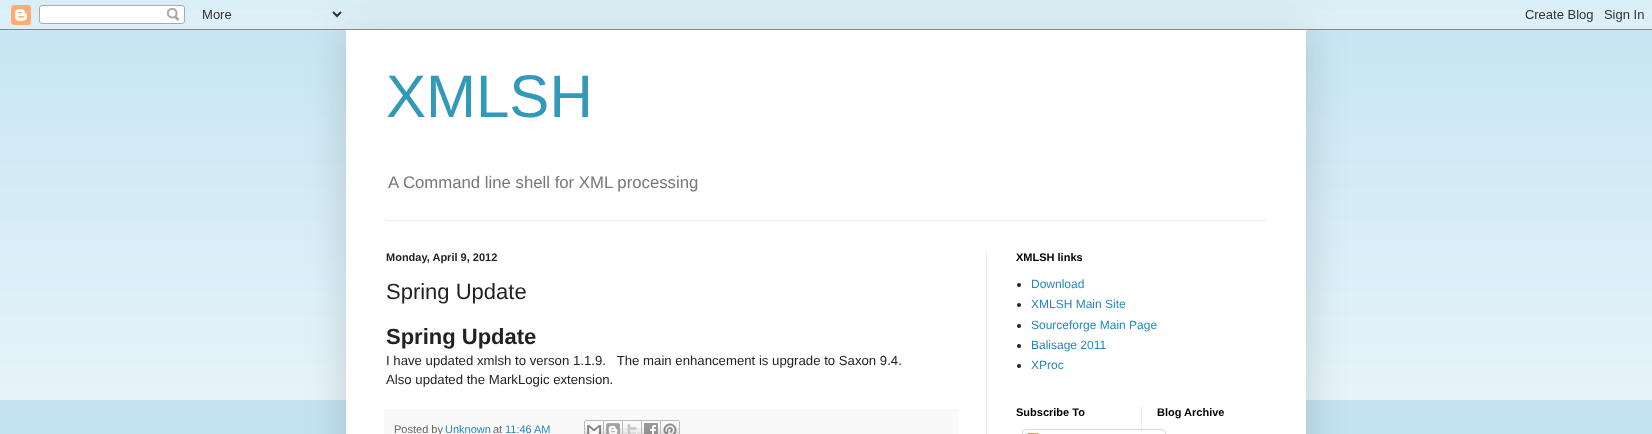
async function draw(canvas) {
	canvas.width = 1652;
	canvas.height = 434;
	const c = canvas.getContext('2d');
	c.miterLimit = 4;
	c.fontKerning = 'normal';
	async function loadImage(src) {
		const img = new Image();
		img.src = src;
		await img.decode();
		return img;
	}

	c.fillStyle = '#c2e3f2';
	c.fillRect(0, 0, 1652, 434);
	c.drawImage(await loadImage('img2.png'), 0, 10, 1652, 390);
	c.fillStyle = '#00000026';
	c.filter = 'blur(20px)';
	c.beginPath();
	c.rect(346, 30, 960, 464);
	c.fill();
	c.filter = 'none';
	c.drawImage(await loadImage('img1.png'), 0, 0, 1652, 30);
	c.fillStyle = '#fff';
	c.fillRect(346, 30, 960, 404);
	c.font = '60px Liberation Sans';
	c.fillStyle = '#39b';
	c.fillText('XMLSH', 386, 117);
	c.font = '16.75px Liberation Sans';
	c.fillStyle = '#777';
	c.fillText('A Command line shell for XML processing', 388, 188);
	c.fillStyle = '#eee';
	c.fillRect(386, 220, 880, 1);
	c.fillRect(986, 251, 1, 183);
	c.font = 'bold 11px Liberation Sans';
	c.fillStyle = '#222';
	c.fillText('Monday, April 9, 2012', 386, 261);
	c.font = '22px Liberation Sans';
	c.fillText('Spring Update', 386, 299);
	c.font = 'bold 22px Liberation Sans';
	c.fillText('Spring Update', 386, 344);
	c.font = '13.2px Liberation Sans';
	c.fillText('I have updated xmlsh to verson 1.1.9.   The main enhancement is upgrade to Saxon 9.4.', 386, 365);
	c.fillText('Also updated the MarkLogic extension.', 386, 384);
	c.fillStyle = '#f9f9f9';
	c.fillRect(384, 409, 574, 25);
	c.font = '11px Liberation Sans';
	c.fillStyle = '#666';
	c.fillText('Posted by', 394, 433);
	c.fillStyle = '#28b';
	c.fillText('Unknown', 445, 433);
	c.fillStyle = '#666';
	c.fillText('at', 493, 433);
	c.fillStyle = '#28b';
	c.fillText('11:46 AM', 505, 433);
	c.drawImage(await loadImage('img3.png'), 584, 420, 20, 14);
	c.drawImage(await loadImage('img4.png'), 604, 420, 19, 14);
	c.drawImage(await loadImage('img5.png'), 623, 420, 19, 14);
	c.drawImage(await loadImage('img6.png'), 642, 420, 19, 14);
	c.drawImage(await loadImage('img7.png'), 661, 420, 19, 14);
	c.font = 'bold 11px Liberation Sans';
	c.fillStyle = '#000';
	c.fillText('XMLSH links', 1016, 261);
	c.fillStyle = '#222';
	c.beginPath();
	c.arc(1019, 285, 2, 0, 2 * Math.PI);
	c.fill();
	c.font = '12px Liberation Sans';
	c.fillStyle = '#28b';
	c.fillText('Download', 1031, 288);
	c.fillStyle = '#222';
	c.beginPath();
	c.arc(1019, 305, 2, 0, 2 * Math.PI);
	c.fill();
	c.fillStyle = '#28b';
	c.fillText('XMLSH Main Site', 1031, 308);
	c.fillStyle = '#222';
	c.beginPath();
	c.arc(1019, 326, 2, 0, 2 * Math.PI);
	c.fill();
	c.fillStyle = '#28b';
	c.fillText('Sourceforge Main Page', 1031, 329);
	c.fillStyle = '#222';
	c.beginPath();
	c.arc(1019, 346, 2, 0, 2 * Math.PI);
	c.fill();
	c.fillStyle = '#28b';
	c.fillText('Balisage 2011', 1031, 349);
	c.fillStyle = '#222';
	c.beginPath();
	c.arc(1019, 366, 2, 0, 2 * Math.PI);
	c.fill();
	c.fillStyle = '#28b';
	c.fillText('XProc', 1031, 369);
	c.font = 'bold 11px Liberation Sans';
	c.fillStyle = '#000';
	c.fillText('Subscribe To', 1016, 416);
	c.fillStyle = '#eee';
	c.fillRect(1141, 406, 1, 28);
	c.drawImage(await loadImage('img8.png'), 1022, 429, 144, 5);
	c.drawImage(await loadImage('img9.png'), 1027, 433, 12, 1);
	c.fillStyle = '#000';
	c.fillText('Blog Archive', 1157, 416);
}

draw(document.querySelector('canvas'));
